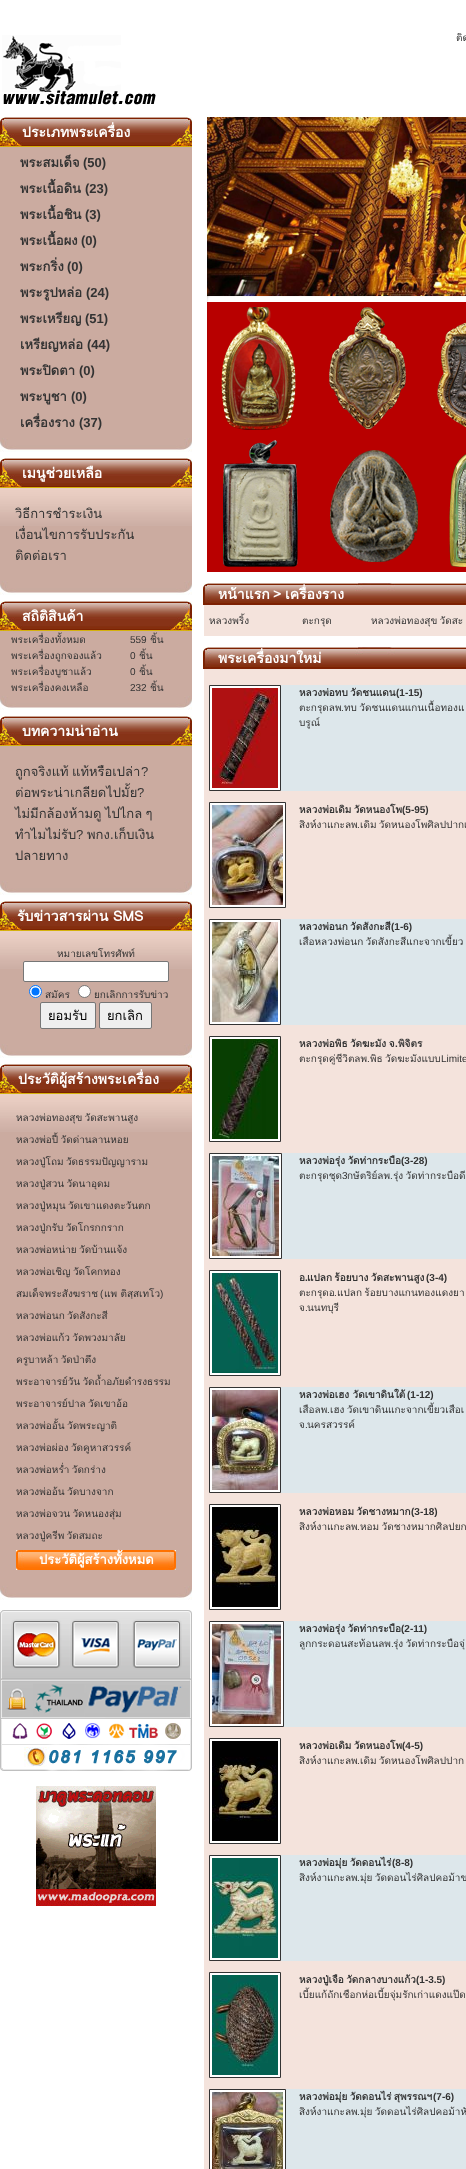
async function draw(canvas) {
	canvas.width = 466;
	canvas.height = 2169;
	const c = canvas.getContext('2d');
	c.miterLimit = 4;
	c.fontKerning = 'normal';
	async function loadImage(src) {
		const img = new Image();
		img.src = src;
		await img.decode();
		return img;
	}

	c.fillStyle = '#fff';
	c.fillRect(0, 0, 466, 2169);
	c.drawImage(await loadImage('img1.png'), 2, 35, 154, 70);
	c.font = '10px Loma';
	c.fillStyle = '#333';
	c.fillText('ติด', 456, 41);
	c.drawImage(await loadImage('img2.png'), 0, 117, 192, 30);
	c.font = 'bold 14px Loma';
	c.fillStyle = '#fff';
	c.fillText('ประเภทพระเครื่อง', 22, 137);
	c.fillStyle = '#cbaba0';
	c.fillRect(0, 147, 192, 291);
	c.font = 'bold 13px Loma';
	c.fillStyle = '#333';
	c.fillText('พระสมเด็จ', 20, 167);
	c.font = 'bold 13px Liberation Sans';
	c.fillText('(50)', 83, 167);
	c.font = 'bold 13px Loma';
	c.fillText('พระเนื้อดิน', 20, 193);
	c.font = 'bold 13px Liberation Sans';
	c.fillText('(23)', 85, 193);
	c.font = 'bold 13px Loma';
	c.fillText('พระเนื้อชิน', 20, 219);
	c.font = 'bold 13px Liberation Sans';
	c.fillText('(3)', 85, 219);
	c.font = 'bold 13px Loma';
	c.fillText('พระเนื้อผง', 20, 245);
	c.font = 'bold 13px Liberation Sans';
	c.fillText('(0)', 81, 245);
	c.font = 'bold 13px Loma';
	c.fillText('พระกริ่ง', 20, 271);
	c.font = 'bold 13px Liberation Sans';
	c.fillText('(0)', 67, 271);
	c.font = 'bold 13px Loma';
	c.fillText('พระรูปหล่อ', 20, 297);
	c.font = 'bold 13px Liberation Sans';
	c.fillText('(24)', 86, 297);
	c.font = 'bold 13px Loma';
	c.fillText('พระเหรียญ', 20, 323);
	c.font = 'bold 13px Liberation Sans';
	c.fillText('(51)', 85, 323);
	c.font = 'bold 13px Loma';
	c.fillText('เหรียญหล่อ', 20, 349);
	c.font = 'bold 13px Liberation Sans';
	c.fillText('(44)', 87, 349);
	c.font = 'bold 13px Loma';
	c.fillText('พระปิดตา', 20, 375);
	c.font = 'bold 13px Liberation Sans';
	c.fillText('(0)', 79, 375);
	c.font = 'bold 13px Loma';
	c.fillText('พระบูชา', 20, 401);
	c.font = 'bold 13px Liberation Sans';
	c.fillText('(0)', 71, 401);
	c.font = 'bold 13px Loma';
	c.fillText('เครื่องราง', 20, 427);
	c.font = 'bold 13px Liberation Sans';
	c.fillText('(37)', 79, 427);
	c.drawImage(await loadImage('img3.png'), 0, 438, 192, 14);
	c.drawImage(await loadImage('img2.png'), 0, 458, 192, 30);
	c.font = 'bold 14px Loma';
	c.fillStyle = '#fff';
	c.fillText('เมนูช่วยเหลือ', 22, 478);
	c.fillStyle = '#cbaba0';
	c.fillRect(0, 526, 192, 55);
	c.drawImage(await loadImage('img4.png'), 0, 488, 192, 38);
	c.font = '13px Loma';
	c.fillStyle = '#333';
	for (const [text, x, y] of [
		['วิธีการชำระเงิน', 15, 518],
		['เงื่อนไขการรับประกัน', 15, 539],
		['ติดต่อเรา', 15, 560],
	]) {
		c.fillText(text, x, y);
	}
	c.drawImage(await loadImage('img3.png'), 0, 581, 192, 14);
	c.drawImage(await loadImage('img2.png'), 0, 601, 192, 30);
	c.font = 'bold 14px Loma';
	c.fillStyle = '#fff';
	c.fillText('สถิติสินค้า', 22, 621);
	c.fillStyle = '#cbaba0';
	c.fillRect(0, 631, 192, 65);
	c.font = '10px Loma';
	c.fillStyle = '#333';
	c.fillText('พระเครื่องทั้งหมด', 11, 643);
	c.font = '10px Liberation Sans';
	c.fillText('559', 130, 643);
	c.font = '10px Loma';
	c.fillText('ชิ้น', 150, 643);
	c.fillText('พระเครื่องถูกจองแล้ว', 11, 659);
	c.font = '10px Liberation Sans';
	c.fillText('0', 130, 659);
	c.font = '10px Loma';
	c.fillText('ชิ้น', 139, 659);
	c.fillText('พระเครื่องบูชาแล้ว', 11, 675);
	c.font = '10px Liberation Sans';
	c.fillText('0', 130, 675);
	c.font = '10px Loma';
	c.fillText('ชิ้น', 139, 675);
	c.fillText('พระเครื่องคงเหลือ', 11, 691);
	c.font = '10px Liberation Sans';
	c.fillText('232', 130, 691);
	c.font = '10px Loma';
	c.fillText('ชิ้น', 150, 691);
	c.drawImage(await loadImage('img3.png'), 0, 696, 192, 14);
	c.drawImage(await loadImage('img2.png'), 0, 716, 192, 30);
	c.font = 'bold 14px Loma';
	c.fillStyle = '#fff';
	c.fillText('บทความน่าอ่าน', 22, 736);
	c.fillStyle = '#cbaba0';
	c.fillRect(0, 746, 192, 135);
	c.wordSpacing = '-1px';
	c.font = '13px Loma';
	c.fillStyle = '#333';
	c.fillText('ถูกจริงแท้ แท้หรือเปล่า', 15, 776);
	c.wordSpacing = '0px';
	c.font = '13px Liberation Sans';
	c.fillText('?', 141, 776);
	c.font = '13px Loma';
	c.fillText('ต่อพระน่าเกลียดไปมั้ย', 15, 797);
	c.font = '13px Liberation Sans';
	c.fillText('?', 137, 797);
	c.wordSpacing = '-1px';
	c.font = '13px Loma';
	c.fillText('ไม่มีกล้องห้ามดู ไปไกล ๆ', 15, 818);
	c.wordSpacing = '0px';
	c.fillText('ทำไมไม่รับ', 15, 839);
	c.font = '13px Liberation Sans';
	c.fillText('?', 76, 839);
	c.font = '13px Loma';
	c.fillText('พกง', 87, 839);
	c.font = '13px Liberation Sans';
	c.fillText('.', 110, 839);
	c.font = '13px Loma';
	c.fillText('เก็บเงิน', 114, 839);
	c.fillText('ปลายทาง', 15, 860);
	c.drawImage(await loadImage('img3.png'), 0, 881, 192, 14);
	c.drawImage(await loadImage('img2.png'), 0, 901, 192, 30);
	c.font = 'bold 14px Loma';
	c.fillStyle = '#fff';
	c.fillText('รับข่าวสารผ่าน SMS', 17, 921);
	c.fillStyle = '#cbaba0';
	c.fillRect(0, 969, 192, 75);
	c.drawImage(await loadImage('img4.png'), 0, 931, 192, 38);
	c.font = '10px Loma';
	c.fillStyle = '#333';
	c.fillText('หมายเลขโทรศัพท์', 57, 957);
	c.fillStyle = '#fff';
	c.beginPath();
	c.roundRect(23.5, 961.5, 145, 20, 1.5);
	c.fill();
	c.strokeStyle = '#767676';
	c.stroke();
	c.beginPath();
	c.arc(35.5, 991.5, 6, 0, 2 * Math.PI);
	c.fill();
	c.strokeStyle = '#0075ff';
	c.stroke();
	c.fillStyle = '#0075ff';
	c.beginPath();
	c.arc(35.5, 991.5, 4, 0, 2 * Math.PI);
	c.fill();
	c.fillStyle = '#333';
	c.fillText('สมัคร', 45, 998);
	c.fillStyle = '#fff';
	c.beginPath();
	c.arc(84.5, 991.5, 6, 0, 2 * Math.PI);
	c.fill();
	c.strokeStyle = '#767676';
	c.stroke();
	c.fillStyle = '#333';
	c.fillText('ยกเลิกการรับข่าว', 94, 998);
	c.fillStyle = '#efefef';
	c.beginPath();
	c.roundRect(40.5, 1002.5, 55, 26, 1.5);
	c.fill();
	c.stroke();
	c.font = '13px Loma';
	c.fillStyle = '#000';
	c.fillText('ยอมรับ', 48, 1020);
	c.fillStyle = '#efefef';
	c.beginPath();
	c.roundRect(99.5, 1002.5, 52, 26, 1.5);
	c.fill();
	c.stroke();
	c.fillStyle = '#000';
	c.fillText('ยกเลิก', 107, 1020);
	c.drawImage(await loadImage('img5.png'), 0, 1044, 192, 14);
	c.drawImage(await loadImage('img2.png'), 0, 1064, 192, 30);
	c.font = 'bold 14px Loma';
	c.fillStyle = '#fff';
	c.fillText('ประวัติผู้สร้างพระเครื่อง', 18, 1084);
	c.fillStyle = '#cbaba0';
	c.fillRect(0, 1132, 192, 454);
	c.drawImage(await loadImage('img4.png'), 0, 1094, 192, 38);
	c.wordSpacing = '-1px';
	c.font = '10px Loma';
	c.fillStyle = '#333';
	for (const [text, x, y] of [
		['หลวงพ่อทองสุข วัดสะพานสูง', 16, 1121],
		['หลวงพ่อปี้ วัดด่านลานหอย', 16, 1143],
		['หลวงปู่โถม วัดธรรมปัญญาราม', 16, 1165],
		['หลวงปู่สวน วัดนาอุดม', 16, 1187],
		['หลวงปู่หมุน วัดเขาแดงตะวันตก', 16, 1209],
		['หลวงปู่กรับ วัดโกรกกราก', 16, 1231],
		['หลวงพ่อหน่าย วัดบ้านแจ้ง', 16, 1253],
		['หลวงพ่อเชิญ วัดโคกทอง', 16, 1275],
	]) {
		c.fillText(text, x, y);
	}
	c.wordSpacing = '0px';
	c.fillText('สมเด็จพระสังฆราช', 16, 1297);
	c.font = '10px Liberation Sans';
	c.fillText('(', 100, 1297);
	c.font = '10px Loma';
	c.fillText('แพ ติสฺสเทโว', 104, 1297);
	c.font = '10px Liberation Sans';
	c.fillText(')', 160, 1297);
	c.wordSpacing = '-1px';
	c.font = '10px Loma';
	for (const [text, x, y] of [
		['หลวงพ่อนก วัดสังกะสี', 16, 1319],
		['หลวงพ่อแก้ว วัดพวงมาลัย', 16, 1341],
		['ครูบาหล้า วัดป่าตึง', 16, 1363],
		['พระอาจารย์วัน วัดถ้ำอภัยดำรงธรรม', 16, 1385],
		['พระอาจารย์ปาล วัดเขาอ้อ', 16, 1407],
		['หลวงพ่ออั้น วัดพระญาติ', 16, 1429],
		['หลวงพ่อผ่อง วัดคูหาสวรรค์', 16, 1451],
		['หลวงพ่อหร่ำ วัดกร่าง', 16, 1473],
		['หลวงพ่ออ้น วัดบางจาก', 16, 1495],
		['หลวงพ่อจวน วัดหนองสุ่ม', 16, 1517],
		['หลวงปู่ครีพ วัดสมถะ', 16, 1539],
	]) {
		c.fillText(text, x, y);
	}
	c.drawImage(await loadImage('img6.png'), 16, 1550, 160, 20);
	c.wordSpacing = '0px';
	c.font = 'bold 13px Loma';
	c.fillStyle = '#fff';
	c.fillText('ประวัติผู้สร้างทั้งหมด', 39, 1564);
	c.drawImage(await loadImage('img3.png'), 0, 1586, 192, 14);
	c.drawImage(await loadImage('img7.png'), 0, 1610, 192, 161);
	c.drawImage(await loadImage('img8.png'), 36, 1786, 120, 120);
	c.drawImage(await loadImage('img9.png'), 207, 117, 259, 455);
	c.drawImage(await loadImage('img10.png'), 203, 583, 263, 22);
	c.font = 'bold 14px Loma';
	c.fillText('หน้าแรก', 218, 599);
	c.wordSpacing = '-1px';
	c.fillText('> เครื่องราง', 273, 599);
	c.fillStyle = '#f4e3dc';
	c.fillRect(204, 605, 262, 31);
	c.wordSpacing = '0px';
	c.font = '10px Loma';
	c.fillStyle = '#333';
	c.fillText('หลวงพริ้ง', 209, 624);
	c.fillText('ตะกรุด', 302, 624);
	c.wordSpacing = '-1px';
	c.fillText('หลวงพ่อทองสุข วัดสะ', 371, 624);
	c.drawImage(await loadImage('img10.png'), 203, 647, 263, 22);
	c.wordSpacing = '0px';
	c.font = 'bold 14px Loma';
	c.fillStyle = '#fff';
	c.fillText('พระเครื่องมาใหม่', 218, 663);
	c.fillStyle = '#f4e3dc';
	c.fillRect(204, 669, 262, 1500);
	c.fillStyle = '#dde7eb';
	c.fillRect(281, 685, 185, 106);
	c.fillStyle = '#fff';
	c.beginPath();
	c.rect(209.5, 685.5, 71, 105);
	c.fill();
	c.strokeStyle = '#333';
	c.stroke();
	c.drawImage(await loadImage('img11.png'), 212, 688, 66, 100);
	c.wordSpacing = '-1px';
	c.font = 'bold 10px Loma';
	c.fillStyle = '#333';
	c.fillText('หลวงพ่อทบ วัดชนแดน', 299, 696);
	c.wordSpacing = '0px';
	c.font = 'bold 10px Liberation Sans';
	c.fillText('(1-15)', 396, 696);
	c.font = '10px Loma';
	c.fillText('ตะกรุดลพ', 299, 711);
	c.font = '10px Liberation Sans';
	c.fillText('.', 341, 711);
	c.wordSpacing = '-1px';
	c.font = '10px Loma';
	c.fillText('ทบ วัดชนแดนแกนเนื้อทองแ', 344, 711);
	c.wordSpacing = '0px';
	c.fillText('บรูณ์', 299, 726);
	c.fillStyle = '#fff';
	c.beginPath();
	c.rect(209.5, 802.5, 76, 105);
	c.fill();
	c.stroke();
	c.drawImage(await loadImage('img12.png'), 212, 805, 71, 100);
	c.wordSpacing = '-1px';
	c.font = 'bold 10px Loma';
	c.fillStyle = '#333';
	c.fillText('หลวงพ่อเดิม วัดหนองโพ', 299, 813);
	c.wordSpacing = '0px';
	c.font = 'bold 10px Liberation Sans';
	c.fillText('(5-95)', 402, 813);
	c.font = '10px Loma';
	c.fillText('สิงห์งาแกะลพ', 299, 828);
	c.font = '10px Liberation Sans';
	c.fillText('.', 357, 828);
	c.wordSpacing = '-1px';
	c.font = '10px Loma';
	c.fillText('เดิม วัดหนองโพศิลปปากเ', 360, 828);
	c.fillStyle = '#dde7eb';
	c.fillRect(281, 919, 185, 106);
	c.fillStyle = '#fff';
	c.beginPath();
	c.rect(209.5, 919.5, 71, 105);
	c.fill();
	c.stroke();
	c.drawImage(await loadImage('img13.png'), 212, 922, 66, 100);
	c.font = 'bold 10px Loma';
	c.fillStyle = '#333';
	c.fillText('หลวงพ่อนก วัดสังกะสี', 299, 930);
	c.wordSpacing = '0px';
	c.font = 'bold 10px Liberation Sans';
	c.fillText('(1-6)', 391, 930);
	c.wordSpacing = '-1px';
	c.font = '10px Loma';
	c.fillText('เสือหลวงพ่อนก วัดสังกะสีแกะจากเขี้ยว', 299, 945);
	c.fillStyle = '#fff';
	c.beginPath();
	c.rect(209.5, 1036.5, 71, 105);
	c.fill();
	c.stroke();
	c.drawImage(await loadImage('img14.png'), 212, 1039, 66, 100);
	c.font = 'bold 10px Loma';
	c.fillStyle = '#333';
	c.fillText('หลวงพ่อพิธ วัดฆะมัง จ', 299, 1047);
	c.wordSpacing = '0px';
	c.font = 'bold 10px Liberation Sans';
	c.fillText('.', 395, 1047);
	c.font = 'bold 10px Loma';
	c.fillText('พิจิตร', 398, 1047);
	c.font = '10px Loma';
	c.fillText('ตะกรุดคู่ชีวิตลพ', 299, 1062);
	c.font = '10px Liberation Sans';
	c.fillText('.', 367, 1062);
	c.wordSpacing = '-1px';
	c.font = '10px Loma';
	c.fillText('พิธ วัดฆะมังแบบ', 370, 1062);
	c.wordSpacing = '0px';
	c.font = '10px Liberation Sans';
	c.fillText('Limite', 441, 1062);
	c.fillStyle = '#dde7eb';
	c.fillRect(282, 1153, 184, 106);
	c.fillStyle = '#fff';
	c.beginPath();
	c.rect(209.5, 1153.5, 72, 105);
	c.fill();
	c.stroke();
	c.drawImage(await loadImage('img15.png'), 212, 1156, 67, 100);
	c.wordSpacing = '-1px';
	c.font = 'bold 10px Loma';
	c.fillStyle = '#333';
	c.fillText('หลวงพ่อรุ่ง วัดท่ากระบือ', 299, 1164);
	c.wordSpacing = '0px';
	c.font = 'bold 10px Liberation Sans';
	c.fillText('(3-28)', 401, 1164);
	c.font = '10px Loma';
	c.fillText('ตะกรุดชุด', 299, 1179);
	c.font = '10px Liberation Sans';
	c.fillText('3', 342, 1179);
	c.font = '10px Loma';
	c.fillText('กษัตริย์ลพ', 347, 1179);
	c.font = '10px Liberation Sans';
	c.fillText('.', 390, 1179);
	c.wordSpacing = '-1px';
	c.font = '10px Loma';
	c.fillText('รุ่ง วัดท่ากระบือดี', 393, 1179);
	c.fillStyle = '#fff';
	c.beginPath();
	c.rect(209.5, 1270.5, 71, 105);
	c.fill();
	c.stroke();
	c.drawImage(await loadImage('img16.png'), 212, 1273, 66, 100);
	c.wordSpacing = '0px';
	c.font = 'bold 10px Loma';
	c.fillStyle = '#333';
	c.fillText('อ', 299, 1281);
	c.font = 'bold 10px Liberation Sans';
	c.fillText('.', 305, 1281);
	c.wordSpacing = '-1px';
	c.font = 'bold 10px Loma';
	c.fillText('แปลก ร้อยบาง วัดสะพานสูง', 307, 1281);
	c.wordSpacing = '0px';
	c.font = 'bold 10px Liberation Sans';
	c.fillText('(3-4)', 426, 1281);
	c.font = '10px Loma';
	c.fillText('ตะกรุดอ', 299, 1296);
	c.font = '10px Liberation Sans';
	c.fillText('.', 334, 1296);
	c.wordSpacing = '-1px';
	c.font = '10px Loma';
	c.fillText('แปลก ร้อยบางแกนทองแดงยา', 337, 1296);
	c.wordSpacing = '0px';
	c.fillText('จ', 299, 1311);
	c.font = '10px Liberation Sans';
	c.fillText('.', 305, 1311);
	c.font = '10px Loma';
	c.fillText('นนทบุรี', 307, 1311);
	c.fillStyle = '#dde7eb';
	c.fillRect(281, 1387, 185, 106);
	c.fillStyle = '#fff';
	c.beginPath();
	c.rect(209.5, 1387.5, 71, 105);
	c.fill();
	c.stroke();
	c.drawImage(await loadImage('img17.png'), 212, 1390, 66, 100);
	c.font = 'bold 10px Loma';
	c.fillStyle = '#333';
	c.fillText('หลวงพ่อเฮง วัดเขาดินใต้', 299, 1398);
	c.font = 'bold 10px Liberation Sans';
	c.fillText('(1-12)', 407, 1398);
	c.font = '10px Loma';
	c.fillText('เสือลพ', 299, 1413);
	c.font = '10px Liberation Sans';
	c.fillText('.', 327, 1413);
	c.wordSpacing = '-1px';
	c.font = '10px Loma';
	c.fillText('เฮง วัดเขาดินแกะจากเขี้ยวเสือเ', 330, 1413);
	c.wordSpacing = '0px';
	c.fillText('จ', 299, 1428);
	c.font = '10px Liberation Sans';
	c.fillText('.', 305, 1428);
	c.font = '10px Loma';
	c.fillText('นครสวรรค์', 307, 1428);
	c.fillStyle = '#fff';
	c.beginPath();
	c.rect(209.5, 1504.5, 71, 105);
	c.fill();
	c.stroke();
	c.drawImage(await loadImage('img18.png'), 212, 1507, 66, 100);
	c.wordSpacing = '-1px';
	c.font = 'bold 10px Loma';
	c.fillStyle = '#333';
	c.fillText('หลวงพ่อหอม วัดชางหมาก', 299, 1515);
	c.wordSpacing = '0px';
	c.font = 'bold 10px Liberation Sans';
	c.fillText('(3-18)', 411, 1515);
	c.font = '10px Loma';
	c.fillText('สิงห์งาแกะลพ', 299, 1530);
	c.font = '10px Liberation Sans';
	c.fillText('.', 357, 1530);
	c.wordSpacing = '-1px';
	c.font = '10px Loma';
	c.fillText('หอม วัดชางหมากศิลปยก', 360, 1530);
	c.fillStyle = '#dde7eb';
	c.fillRect(284, 1621, 182, 106);
	c.fillStyle = '#fff';
	c.beginPath();
	c.rect(209.5, 1621.5, 74, 105);
	c.fill();
	c.stroke();
	c.drawImage(await loadImage('img19.png'), 212, 1624, 69, 100);
	c.font = 'bold 10px Loma';
	c.fillStyle = '#333';
	c.fillText('หลวงพ่อรุ่ง วัดท่ากระบือ', 299, 1632);
	c.wordSpacing = '0px';
	c.font = 'bold 10px Liberation Sans';
	c.fillText('(2-11)', 401, 1632);
	c.font = '10px Loma';
	c.fillText('ลูกกระดอนสะท้อนลพ', 299, 1647);
	c.font = '10px Liberation Sans';
	c.fillText('.', 391, 1647);
	c.wordSpacing = '-1px';
	c.font = '10px Loma';
	c.fillText('รุ่ง วัดท่ากระบือจุ่', 393, 1647);
	c.fillStyle = '#fff';
	c.beginPath();
	c.rect(209.5, 1738.5, 71, 105);
	c.fill();
	c.stroke();
	c.drawImage(await loadImage('img20.png'), 212, 1741, 66, 100);
	c.font = 'bold 10px Loma';
	c.fillStyle = '#333';
	c.fillText('หลวงพ่อเดิม วัดหนองโพ', 299, 1749);
	c.wordSpacing = '0px';
	c.font = 'bold 10px Liberation Sans';
	c.fillText('(4-5)', 402, 1749);
	c.font = '10px Loma';
	c.fillText('สิงห์งาแกะลพ', 299, 1764);
	c.font = '10px Liberation Sans';
	c.fillText('.', 357, 1764);
	c.wordSpacing = '-1px';
	c.font = '10px Loma';
	c.fillText('เดิม วัดหนองโพศิลปปาก', 360, 1764);
	c.fillStyle = '#dde7eb';
	c.fillRect(281, 1855, 185, 106);
	c.fillStyle = '#fff';
	c.beginPath();
	c.rect(209.5, 1855.5, 71, 105);
	c.fill();
	c.stroke();
	c.drawImage(await loadImage('img21.png'), 212, 1858, 66, 100);
	c.font = 'bold 10px Loma';
	c.fillStyle = '#333';
	c.fillText('หลวงพ่อมุ่ย วัดดอนไร่', 299, 1866);
	c.wordSpacing = '0px';
	c.font = 'bold 10px Liberation Sans';
	c.fillText('(8-8)', 392, 1866);
	c.font = '10px Loma';
	c.fillText('สิงห์งาแกะลพ', 299, 1881);
	c.font = '10px Liberation Sans';
	c.fillText('.', 357, 1881);
	c.wordSpacing = '-1px';
	c.font = '10px Loma';
	c.fillText('มุ่ย วัดดอนไร่ศิลปคอม้าข', 360, 1881);
	c.fillStyle = '#fff';
	c.beginPath();
	c.rect(209.5, 1972.5, 71, 105);
	c.fill();
	c.stroke();
	c.drawImage(await loadImage('img22.png'), 212, 1975, 66, 100);
	c.font = 'bold 10px Loma';
	c.fillStyle = '#333';
	c.fillText('หลวงปู่เจือ วัดกลางบางแก้ว', 299, 1983);
	c.wordSpacing = '0px';
	c.font = 'bold 10px Liberation Sans';
	c.fillText('(1-3.5)', 416, 1983);
	c.font = '10px Loma';
	c.fillText('เบี้ยแก้ถักเชือกห่อเบี้ยจุ่มรักเก่าแดงแป๊ด', 299, 1998);
	c.fillStyle = '#dde7eb';
	c.fillRect(286, 2089, 180, 80);
	c.fillStyle = '#fff';
	c.beginPath();
	c.rect(209.5, 2089.5, 76, 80);
	c.fill();
	c.stroke();
	c.drawImage(await loadImage('img23.png'), 212, 2092, 71, 77);
	c.wordSpacing = '-1px';
	c.font = 'bold 10px Loma';
	c.fillStyle = '#333';
	c.fillText('หลวงพ่อมุ่ย วัดดอนไร่ สุพรรณฯ', 299, 2100);
	c.wordSpacing = '0px';
	c.font = 'bold 10px Liberation Sans';
	c.fillText('(7-6)', 433, 2100);
	c.font = '10px Loma';
	c.fillText('สิงห์งาแกะลพ', 299, 2115);
	c.font = '10px Liberation Sans';
	c.fillText('.', 357, 2115);
	c.wordSpacing = '-1px';
	c.font = '10px Loma';
	c.fillText('มุ่ย วัดดอนไร่ศิลปคอม้าหั', 360, 2115);
}

draw(document.querySelector('canvas'));
